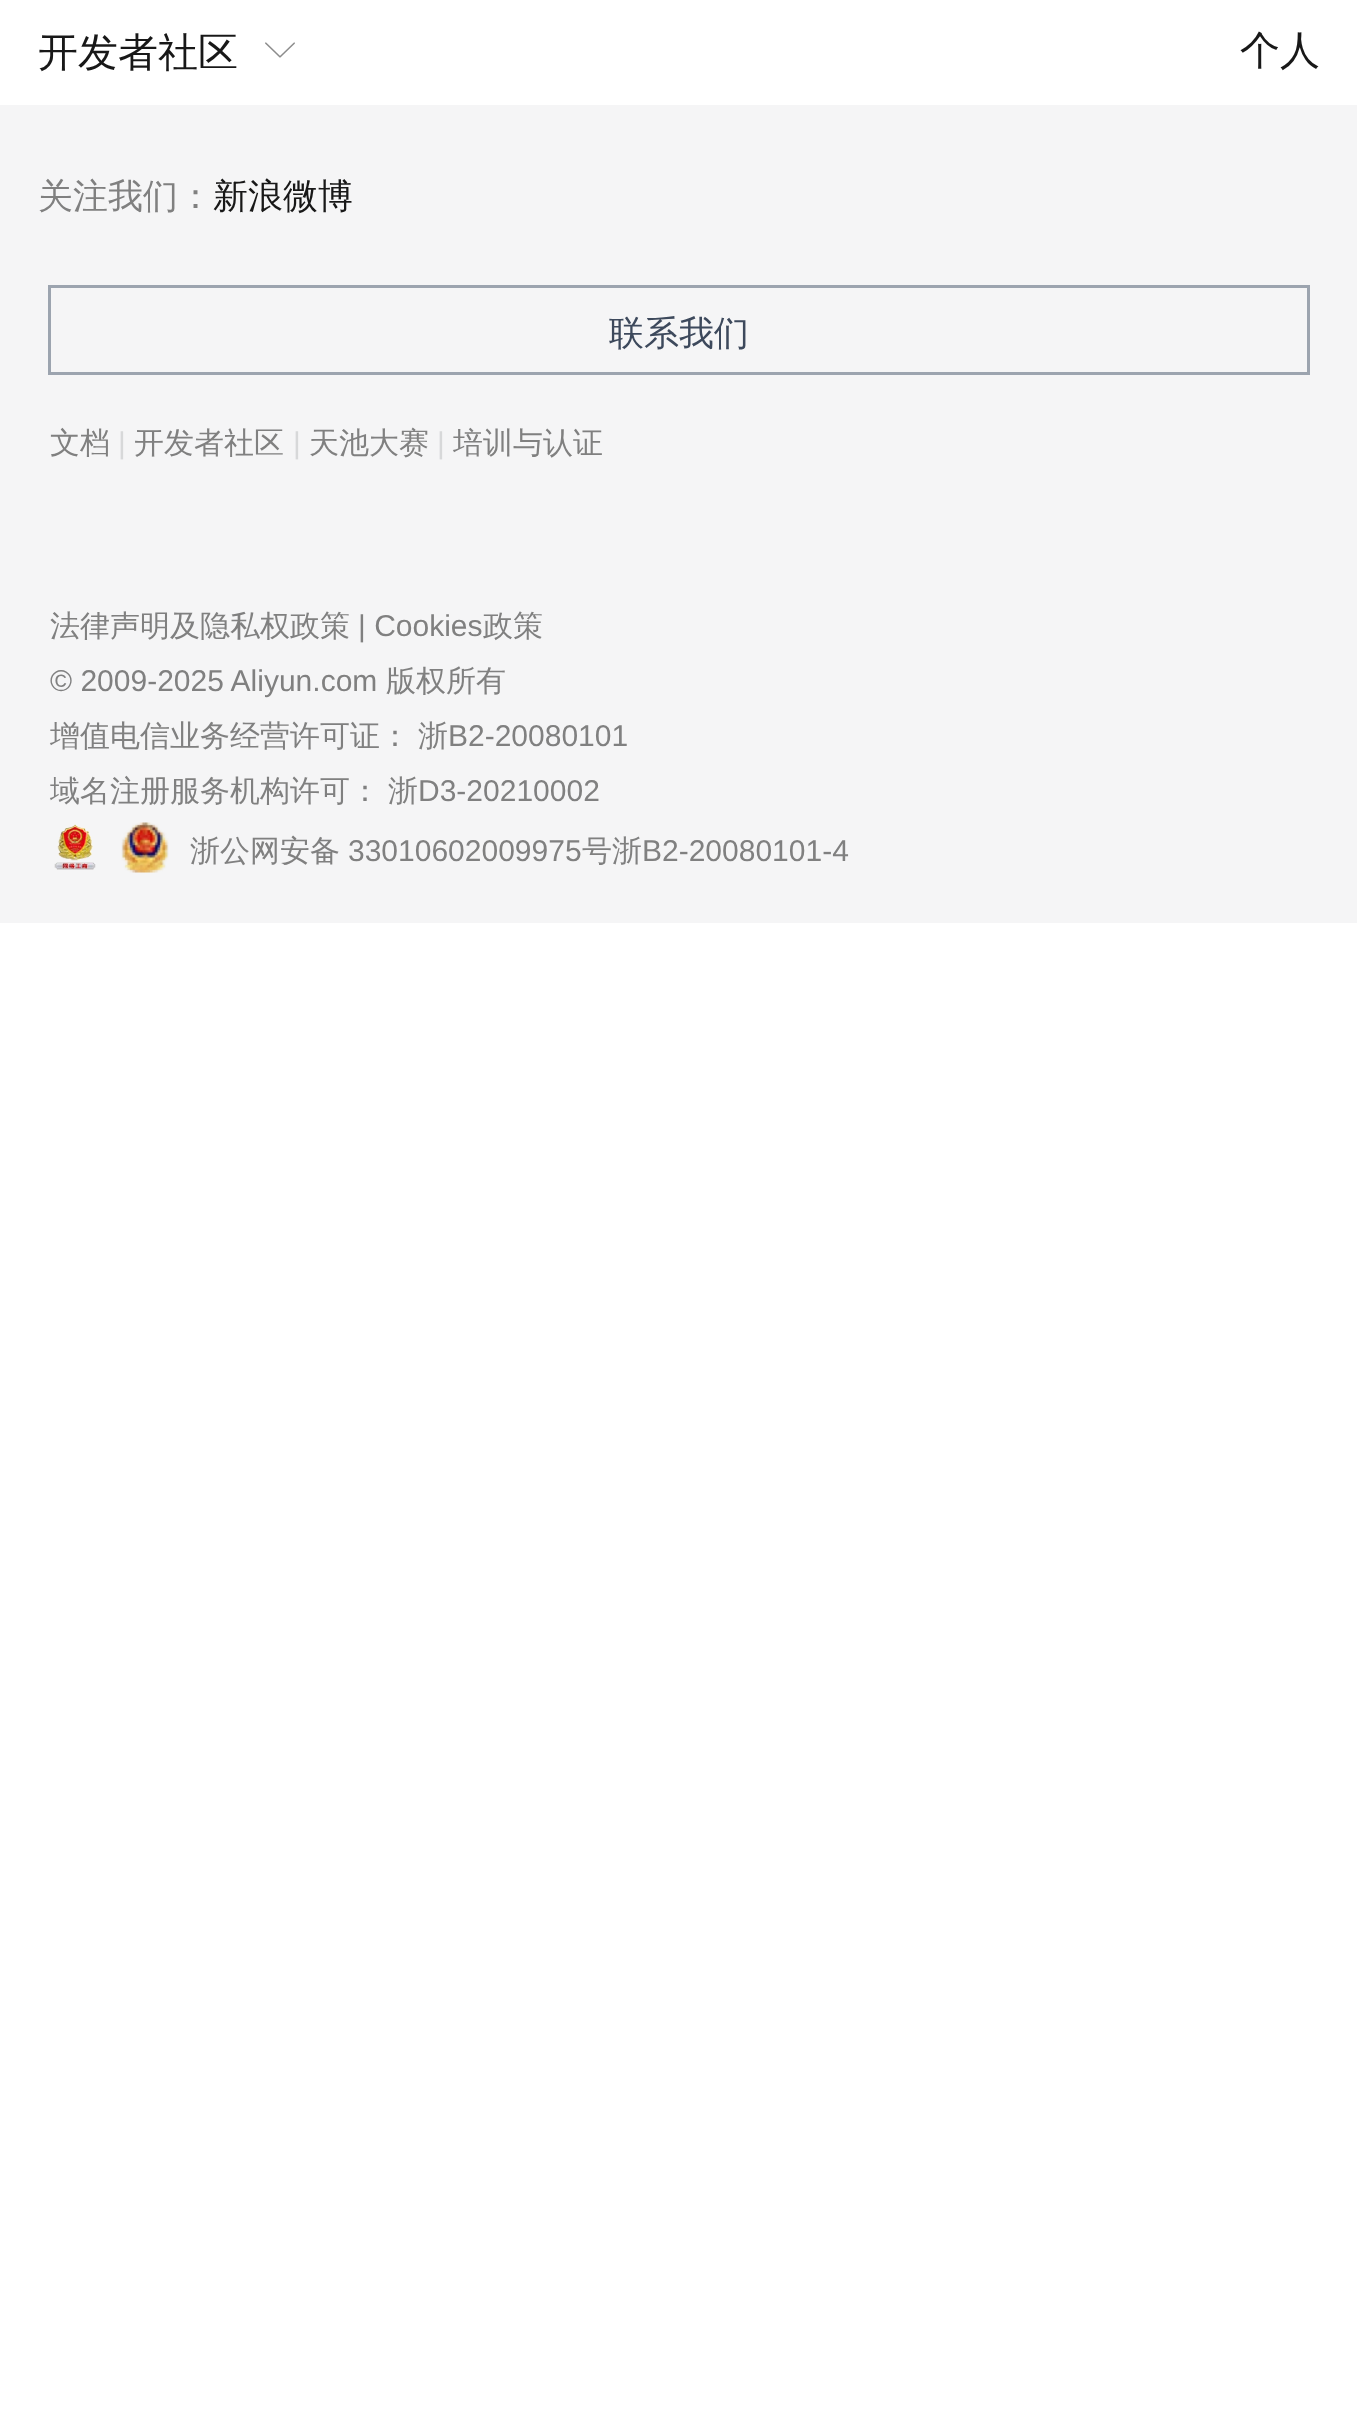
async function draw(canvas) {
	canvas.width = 1357;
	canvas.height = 2420;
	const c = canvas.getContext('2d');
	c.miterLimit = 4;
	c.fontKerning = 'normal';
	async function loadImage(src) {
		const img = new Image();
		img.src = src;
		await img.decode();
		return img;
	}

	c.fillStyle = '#fff';
	c.fillRect(0, 0, 1357, 2420);
	c.font = '500 40px WenQuanYi Zen Hei';
	c.fillStyle = '#181818';
	c.fillText('开发者社区', 38, 66);
	c.drawImage(await loadImage('img1.png'), 265, 42, 30, 16);
	c.fillText('个人', 1240, 64);
	c.fillStyle = '#f5f5f6';
	c.fillRect(0, 105, 1357, 818);
	c.font = '500 35px WenQuanYi Zen Hei';
	c.fillStyle = '#808080';
	c.fillText('关注我们：', 38, 208);
	c.fillStyle = '#181818';
	c.fillText('新浪微博', 213, 208);
	c.strokeStyle = '#9ca4af';
	c.lineWidth = 3;
	c.strokeRect(49.5, 286.5, 1259, 87);
	c.fillStyle = '#3d495c';
	c.fillText('联系我们', 609, 345);
	c.font = '500 30px WenQuanYi Zen Hei';
	c.fillStyle = '#808080';
	c.fillText('文档', 50, 453);
	c.font = '30px Liberation Sans';
	c.fillStyle = '#d7d8d9';
	c.fillText('|', 118, 453);
	c.font = '500 30px WenQuanYi Zen Hei';
	c.fillStyle = '#808080';
	c.fillText('开发者社区', 134, 453);
	c.font = '30px Liberation Sans';
	c.fillStyle = '#d7d8d9';
	c.fillText('|', 293, 453);
	c.font = '500 30px WenQuanYi Zen Hei';
	c.fillStyle = '#808080';
	c.fillText('天池大赛', 309, 453);
	c.font = '30px Liberation Sans';
	c.fillStyle = '#d7d8d9';
	c.fillText('|', 437, 453);
	c.font = '500 30px WenQuanYi Zen Hei';
	c.fillStyle = '#808080';
	c.fillText('培训与认证', 453, 453);
	c.fillText('法律声明及隐私权政策', 50, 636);
	c.font = '30px Liberation Sans';
	c.fillText('| Cookies', 358, 636);
	c.font = '500 30px WenQuanYi Zen Hei';
	c.fillText('政策', 483, 636);
	c.font = '30px Liberation Sans';
	c.fillText('© 2009-2025 Aliyun.com', 50, 691);
	c.font = '500 30px WenQuanYi Zen Hei';
	for (const [text, x, y] of [
		['版权所有', 386, 691],
		['增值电信业务经营许可证：', 50, 746],
		['浙', 418, 746],
	]) {
		c.fillText(text, x, y);
	}
	c.font = '30px Liberation Sans';
	c.fillText('B2-20080101', 448, 746);
	c.font = '500 30px WenQuanYi Zen Hei';
	c.fillText('域名注册服务机构许可：', 50, 801);
	c.fillText('浙', 388, 801);
	c.font = '30px Liberation Sans';
	c.fillText('D3-20210002', 418, 801);
	c.drawImage(await loadImage('img2.png'), 54, 824, 42, 46);
	c.drawImage(await loadImage('img3.png'), 121, 822, 48, 51);
	c.font = '500 30px WenQuanYi Zen Hei';
	c.fillText('浙公网安备', 190, 861);
	c.font = '30px Liberation Sans';
	c.fillText('33010602009975', 348, 861);
	c.font = '500 30px WenQuanYi Zen Hei';
	c.fillText('号浙', 582, 861);
	c.font = '30px Liberation Sans';
	c.fillText('B2-20080101-4', 642, 861);
}

draw(document.querySelector('canvas'));
